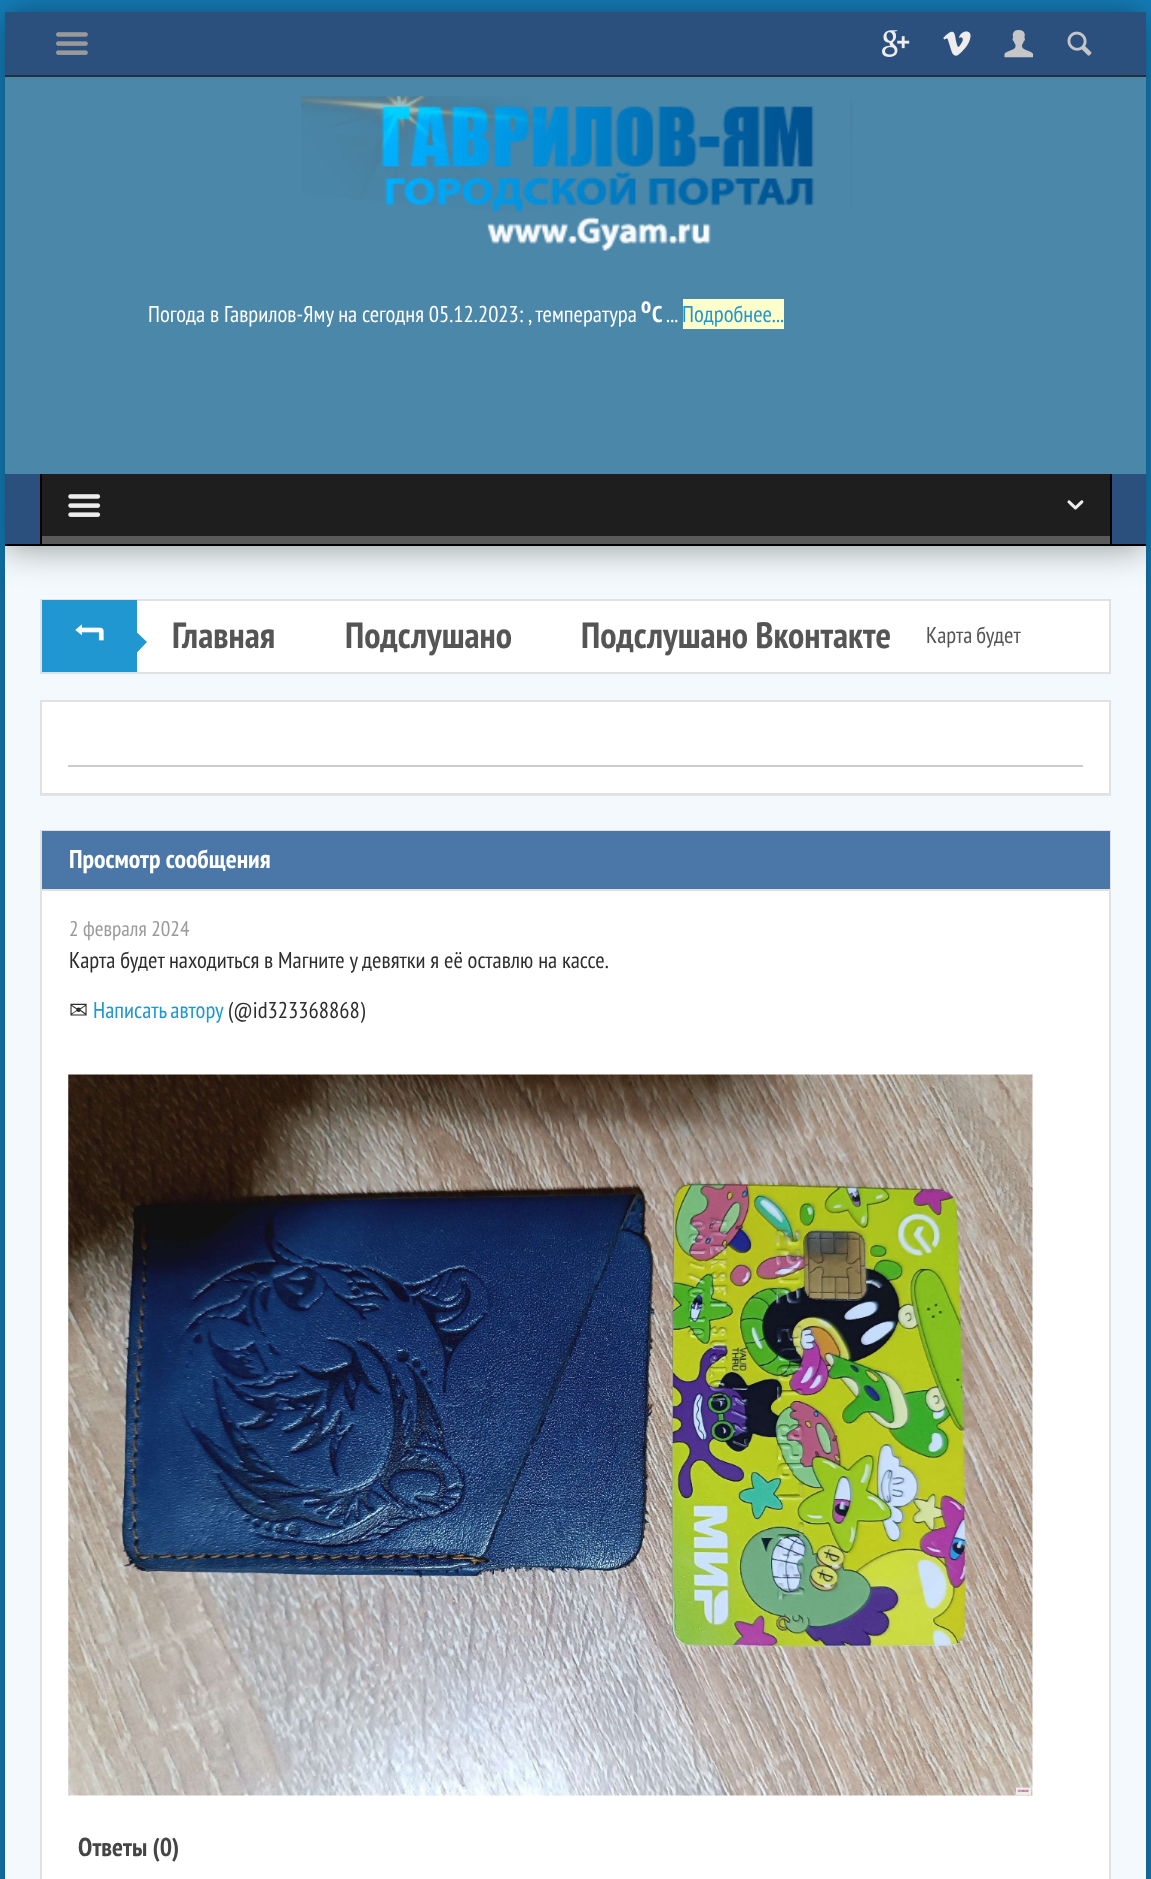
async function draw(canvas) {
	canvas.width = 1151;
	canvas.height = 1879;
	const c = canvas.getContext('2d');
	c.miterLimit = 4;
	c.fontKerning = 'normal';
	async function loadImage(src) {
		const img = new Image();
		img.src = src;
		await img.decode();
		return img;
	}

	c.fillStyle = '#1581be';
	c.fillRect(0, 0, 1151, 1879);
	c.save();
	c.beginPath();
	c.moveTo(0, 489);
	c.lineTo(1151, 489);
	c.lineTo(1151, 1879);
	c.lineTo(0, 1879);
	c.closePath();
	c.moveTo(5, 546);
	c.lineTo(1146, 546);
	c.lineTo(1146, 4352);
	c.lineTo(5, 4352);
	c.closePath();
	c.clip('evenodd');
	c.fillStyle = '#00000070';
	c.filter = 'blur(18.5px)';
	c.beginPath();
	c.rect(5, 546, 1141, 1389);
	c.fill();
	c.filter = 'none';
	c.restore();
	c.fillStyle = '#fffffff2';
	c.fillRect(5, 546, 1141, 1333);
	c.fillStyle = '#fff';
	c.fillRect(137, 601, 972, 71);
	c.strokeStyle = '#e1e1e1';
	c.lineWidth = 2;
	c.strokeRect(41, 600, 1069, 73);
	c.save();
	c.beginPath();
	c.moveTo(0, 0);
	c.lineTo(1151, 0);
	c.lineTo(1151, 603);
	c.lineTo(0, 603);
	c.closePath();
	c.moveTo(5, 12);
	c.lineTo(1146, 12);
	c.lineTo(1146, 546);
	c.lineTo(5, 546);
	c.closePath();
	c.clip('evenodd');
	c.fillStyle = '#00000070';
	c.filter = 'blur(18.5px)';
	c.beginPath();
	c.rect(5, 12, 1141, 534);
	c.fill();
	c.filter = 'none';
	c.restore();
	for (const [x, y, w, h, color] of [
		[5, 77, 1141, 397, '#90909070'],
		[5, 12, 1141, 63, '#2b507e'],
		[5, 75, 1141, 2, '#252e39'],
	]) {
		c.fillStyle = color;
		c.fillRect(x, y, w, h);
	}
	c.drawImage(await loadImage('img1.png'), 56, 32, 32, 23);
	c.drawImage(await loadImage('img2.png'), 882, 30, 28, 27);
	c.drawImage(await loadImage('img3.png'), 943, 31, 28, 25);
	c.drawImage(await loadImage('img4.png'), 1004, 30, 29, 28);
	c.drawImage(await loadImage('img5.png'), 1067, 31, 25, 25);
	c.drawImage(await loadImage('img6.png'), 301, 96, 552, 155);
	c.font = '22.75px PT Sans Narrow';
	c.fillStyle = '#fff';
	c.fillText('Погода в Гаврилов-Яму на сегодня 05.12.2023: , температура', 148, 322);
	c.font = 'bold 22.75px PT Sans Narrow';
	c.fillText('o', 641, 313);
	c.fillText('C', 652, 322);
	c.font = '22.75px PT Sans Narrow';
	c.fillText('...', 666, 322);
	c.fillStyle = '#ffc';
	c.fillRect(683, 299, 101, 30);
	c.fillStyle = '#2197d2';
	c.fillText('Подробнее...', 682, 322);
	for (const [x, y, w, h, color] of [
		[5, 474, 1141, 70, '#2b507e'],
		[5, 544, 1141, 2, '#000'],
		[1110, 474, 2, 70, '#000'],
		[40, 474, 2, 70, '#000'],
		[42, 474, 1068, 62, '#1e1e1e'],
		[42, 536, 1068, 8, '#5a5a5a'],
	]) {
		c.fillStyle = color;
		c.fillRect(x, y, w, h);
	}
	c.drawImage(await loadImage('img7.png'), 68, 494, 33, 23);
	c.drawImage(await loadImage('img8.png'), 1067, 500, 17, 10);
	c.fillStyle = '#2197d2';
	c.fillRect(42, 600, 95, 72);
	c.drawImage(await loadImage('img9.png'), 75, 624, 29, 17);
	c.beginPath();
	c.moveTo(136.5, 653);
	c.lineTo(136.5, 632);
	c.lineTo(147, 642);
	c.closePath();
	c.fill();
	c.font = 'bold 36.5px PT Sans Narrow';
	c.fillStyle = '#555';
	for (const [text, x, y] of [
		['Главная', 172, 648],
		['Подслушано', 345, 648],
		['Подслушано Вконтакте', 581, 648],
	]) {
		c.fillText(text, x, y);
	}
	c.wordSpacing = '-1px';
	c.font = '22.75px PT Sans Narrow';
	c.fillText('Карта будет', 926, 643);
	c.fillStyle = '#e5e5e5';
	c.beginPath();
	c.moveTo(40, 702);
	c.lineTo(40, 796);
	c.lineTo(1111, 796);
	c.lineTo(1111, 794);
	c.lineTo(40, 794);
	c.closePath();
	c.fill();
	c.fillStyle = '#fff';
	c.beginPath();
	c.rect(41, 701, 1069, 93);
	c.fill();
	c.stroke();
	c.fillStyle = '#ccc';
	c.fillRect(68, 765, 1015, 2);
	c.fillStyle = '#fff';
	c.fillRect(42, 891, 1067, 988);
	c.strokeRect(41, 831, 1069, 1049);
	c.fillStyle = '#4a76a8';
	c.fillRect(42, 831, 1068, 58);
	c.fillStyle = '#e1e1e1';
	c.fillRect(42, 889, 1068, 2);
	c.wordSpacing = '0px';
	c.font = 'bold 25.75px PT Sans Narrow';
	c.fillStyle = '#fff';
	c.fillText('Просмотр сообщения', 69, 868);
	c.font = '21.25px PT Sans Narrow';
	c.fillStyle = '#9a9a9a';
	c.fillText('2 февраля 2024', 69, 936);
	c.font = '22.75px PT Sans Narrow';
	c.fillStyle = '#2d2d2d';
	c.fillText('Карта будет находиться в Магните у девятки я еë оставлю на кассе.', 69, 968);
	c.font = '22.75px DejaVu Sans';
	c.fillText('✉', 69, 1018);
	c.wordSpacing = '-1px';
	c.font = '22.75px PT Sans Narrow';
	c.fillStyle = '#2197d2';
	c.fillText('Написать автору', 93, 1018);
	c.wordSpacing = '0px';
	c.fillStyle = '#2d2d2d';
	c.fillText('(@id323368868)', 228, 1018);
	c.drawImage(await loadImage('img10.png'), 68, 1074, 965, 722);
	c.font = 'bold 25.75px PT Sans Narrow';
	c.fillStyle = '#454545';
	c.fillText('Ответы (0)', 78, 1856);
}

draw(document.querySelector('canvas'));
